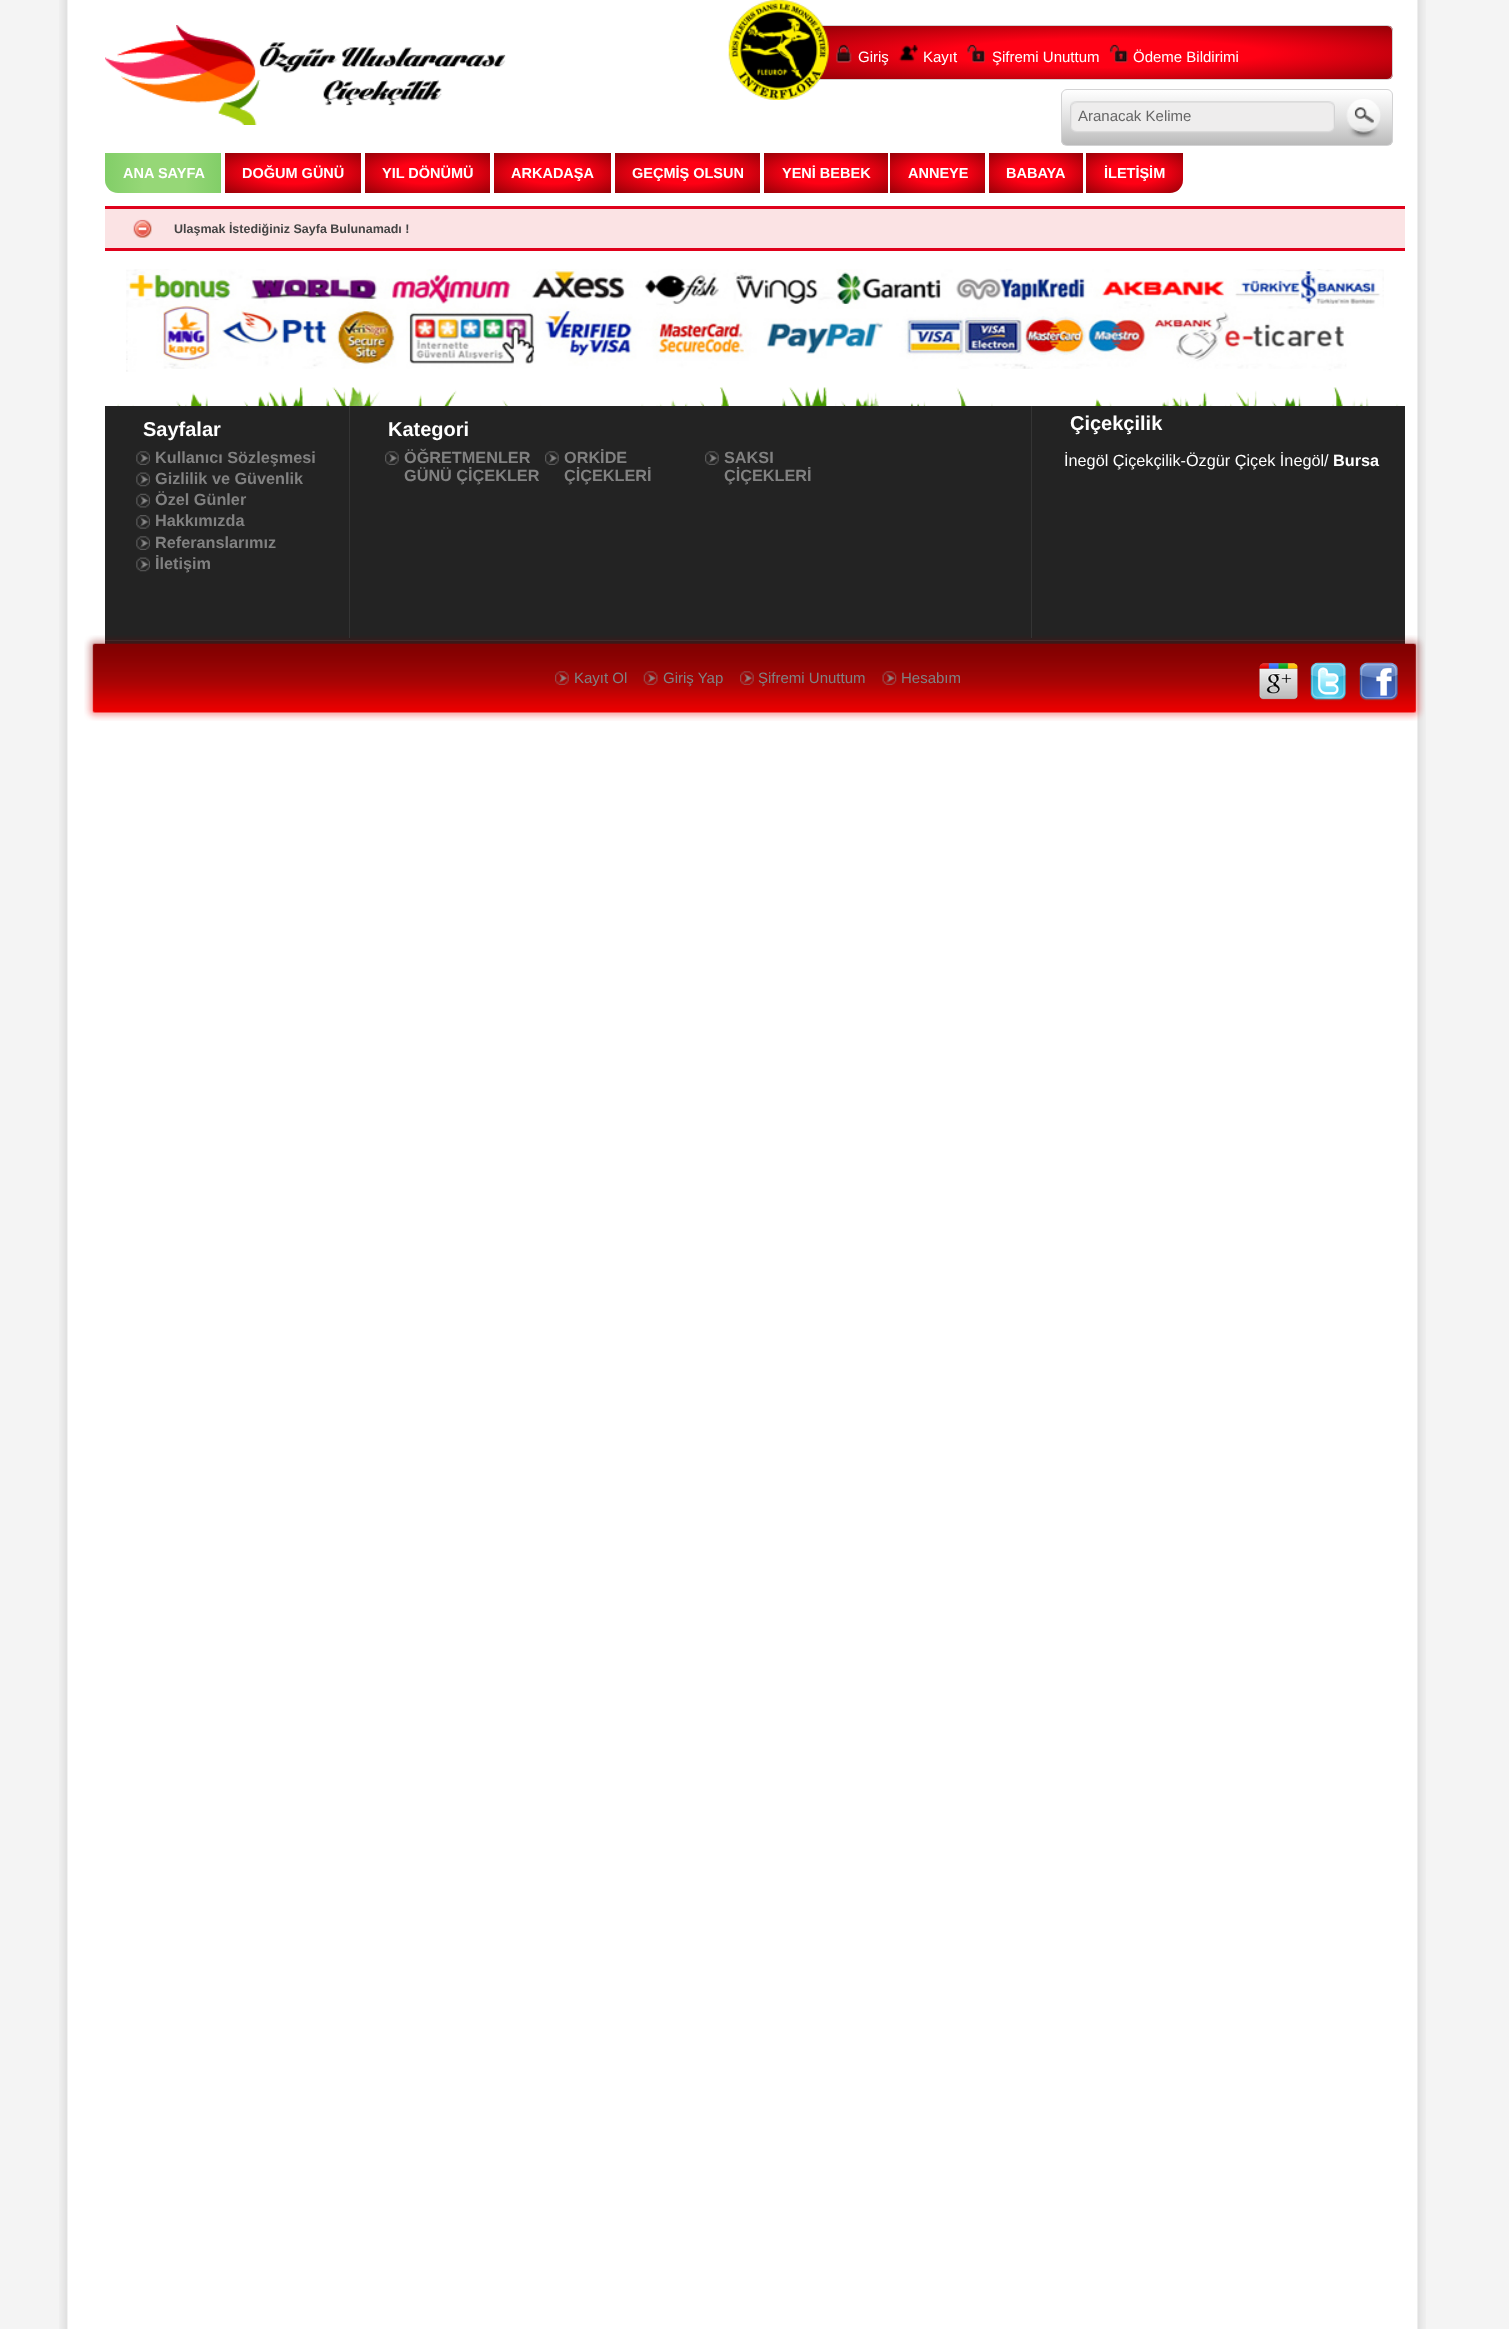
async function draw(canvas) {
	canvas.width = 1509;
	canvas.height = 2329;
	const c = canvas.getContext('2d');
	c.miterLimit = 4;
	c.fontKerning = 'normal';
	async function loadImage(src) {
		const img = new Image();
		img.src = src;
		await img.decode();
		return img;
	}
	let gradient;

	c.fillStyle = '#f4f4f4';
	c.fillRect(0, 0, 1509, 2329);
	c.drawImage(await loadImage('img1.png'), 59, 0, 1367, 2329);
	c.drawImage(await loadImage('img2.png'), 105, 25, 401, 100);
	gradient = c.createRadialGradient(1104, 583, 0, 1104, 583, 407);
	gradient.addColorStop(0.39, '#ff0014');
	gradient.addColorStop(1, '#970107');
	c.fillStyle = gradient;
	c.beginPath();
	c.rect(818, 26, 573, 53);
	c.save();
	c.clip();
	c.scale(1, 37 / 407);
	c.fillRect(0, 0, 1509, 25619);
	c.restore();
	c.save();
	c.beginPath();
	c.roundRect(815, 25, 578, 55, 6);
	c.clip();
	gradient = c.createRadialGradient(1679, 583, 0, 1679, 583, 407);
	gradient.addColorStop(0.39, '#ff0014');
	gradient.addColorStop(1, '#970107');
	c.fillStyle = gradient;
	c.beginPath();
	c.rect(1391, 26, 2, 53);
	c.save();
	c.clip();
	c.scale(1, 37 / 407);
	c.fillRect(0, 0, 1509, 25619);
	c.restore();
	c.restore();
	c.beginPath();
	c.roundRect(815.5, 25.5, 577, 54, 5.5);
	c.strokeStyle = '#d3d3d4';
	c.stroke();
	c.drawImage(await loadImage('img3.png'), 728, 0, 101, 100);
	c.drawImage(await loadImage('img4.png'), 836, 44, 16, 19);
	c.font = '15px Liberation Sans';
	c.fillStyle = '#fff';
	c.fillText('Giriş', 858, 62);
	c.drawImage(await loadImage('img5.png'), 898, 44, 20, 18);
	c.fillText('Kayıt', 923, 62);
	c.drawImage(await loadImage('img6.png'), 967, 44, 18, 19);
	c.fillText('Şifremi Unuttum', 992, 62);
	c.drawImage(await loadImage('img7.png'), 1109, 44, 19, 19);
	c.fillText('Ödeme Bildirimi', 1133, 62);
	c.save();
	c.beginPath();
	c.roundRect(1061, 89, 332, 57, 6);
	c.clip();
	gradient = c.createLinearGradient(1227, 90, 1227, 145);
	gradient.addColorStop(0, '#fff');
	gradient.addColorStop(0.52, '#e1e1e1');
	gradient.addColorStop(1, '#bababa');
	c.fillStyle = gradient;
	c.fillRect(1061, 90, 332, 55);
	c.restore();
	c.beginPath();
	c.roundRect(1061.5, 89.5, 331, 56, 5.5);
	c.stroke();
	c.drawImage(await loadImage('img8.png'), 1070, 101, 265, 32);
	c.fillStyle = '#666';
	c.fillText('Aranacak Kelime', 1078, 121);
	c.drawImage(await loadImage('img9.png'), 1346, 99, 35, 39);
	gradient = c.createLinearGradient(105, 173, 221, 173);
	gradient.addColorStop(0, '#82ce68');
	gradient.addColorStop(0.33, '#96d777');
	gradient.addColorStop(0.69, '#96d777');
	gradient.addColorStop(1, '#82ce68');
	c.fillStyle = gradient;
	c.beginPath();
	c.roundRect(105, 153, 116, 40, [0, 0, 0, 13]);
	c.fill();
	c.font = 'bold 14.5px Liberation Sans';
	c.fillStyle = '#fff';
	c.fillText('ANA SAYFA', 123, 178);
	gradient = c.createRadialGradient(293, 593.14, 0, 293, 593.14, 96);
	gradient.addColorStop(0.39, '#ff0014');
	gradient.addColorStop(1, '#970107');
	c.fillStyle = gradient;
	c.beginPath();
	c.rect(225, 153, 136, 40);
	c.save();
	c.clip();
	c.scale(1, 28 / 96);
	c.fillRect(0, 0, 1509, 7986);
	c.restore();
	c.fillStyle = '#fff';
	c.fillText('DOĞUM GÜNÜ', 242, 178);
	gradient = c.createRadialGradient(428, 543.71, 0, 428, 543.71, 88);
	gradient.addColorStop(0.39, '#ff0014');
	gradient.addColorStop(1, '#970107');
	c.fillStyle = gradient;
	c.beginPath();
	c.rect(365, 153, 125, 40);
	c.save();
	c.clip();
	c.scale(1, 28 / 88);
	c.fillRect(0, 0, 1509, 7320);
	c.restore();
	c.fillStyle = '#fff';
	c.fillText('YIL DÖNÜMÜ', 382, 178);
	gradient = c.createRadialGradient(553, 512.82, 0, 553, 512.82, 83);
	gradient.addColorStop(0.39, '#ff0014');
	gradient.addColorStop(1, '#970107');
	c.fillStyle = gradient;
	c.beginPath();
	c.rect(494, 153, 117, 40);
	c.save();
	c.clip();
	c.scale(1, 28 / 83);
	c.fillRect(0, 0, 1509, 6904);
	c.restore();
	c.fillStyle = '#fff';
	c.fillText('ARKADAŞA', 511, 178);
	gradient = c.createRadialGradient(688, 636.39, 0, 688, 636.39, 103);
	gradient.addColorStop(0.39, '#ff0014');
	gradient.addColorStop(1, '#970107');
	c.fillStyle = gradient;
	c.beginPath();
	c.rect(615, 153, 145, 40);
	c.save();
	c.clip();
	c.scale(1, 28 / 103);
	c.fillRect(0, 0, 1509, 8568);
	c.restore();
	c.fillStyle = '#fff';
	c.fillText('GEÇMİŞ OLSUN', 632, 178);
	gradient = c.createRadialGradient(826, 543.71, 0, 826, 543.71, 88);
	gradient.addColorStop(0.39, '#ff0014');
	gradient.addColorStop(1, '#970107');
	c.fillStyle = gradient;
	c.beginPath();
	c.rect(764, 153, 124, 40);
	c.save();
	c.clip();
	c.scale(1, 28 / 88);
	c.fillRect(0, 0, 1509, 7320);
	c.restore();
	c.fillStyle = '#fff';
	c.fillText('YENİ BEBEK', 782, 178);
	gradient = c.createRadialGradient(938, 413.96, 0, 938, 413.96, 67);
	gradient.addColorStop(0.39, '#ff0014');
	gradient.addColorStop(1, '#970107');
	c.fillStyle = gradient;
	c.beginPath();
	c.rect(890, 153, 95, 40);
	c.save();
	c.clip();
	c.scale(1, 28 / 67);
	c.fillRect(0, 0, 1509, 5573);
	c.restore();
	c.fillStyle = '#fff';
	c.fillText('ANNEYE', 908, 178);
	gradient = c.createRadialGradient(1036, 407.79, 0, 1036, 407.79, 66);
	gradient.addColorStop(0.39, '#ff0014');
	gradient.addColorStop(1, '#970107');
	c.fillStyle = gradient;
	c.beginPath();
	c.rect(989, 153, 94, 40);
	c.save();
	c.clip();
	c.scale(1, 28 / 66);
	c.fillRect(0, 0, 1509, 5490);
	c.restore();
	c.fillStyle = '#fff';
	c.fillText('BABAYA', 1006, 178);
	gradient = c.createRadialGradient(1134, 420.14, 0, 1134, 420.14, 68);
	gradient.addColorStop(0.39, '#ff0014');
	gradient.addColorStop(1, '#970107');
	c.fillStyle = gradient;
	c.beginPath();
	c.roundRect(1086, 153, 97, 40, [0, 0, 13, 0]);
	c.save();
	c.clip();
	c.scale(1, 28 / 68);
	c.fillRect(0, 0, 1509, 5657);
	c.restore();
	c.fillStyle = '#fff';
	c.fillText('İLETİŞİM', 1104, 178);
	c.fillStyle = '#fbe3e4';
	c.fillRect(105, 209, 1300, 39);
	c.drawImage(await loadImage('img10.png'), 133, 219, 19, 19);
	c.fillStyle = '#e0011b';
	c.fillRect(105, 206, 1300, 3);
	c.fillRect(105, 248, 1300, 3);
	c.font = 'bold 12.5px Liberation Sans';
	c.fillStyle = '#444';
	c.fillText('Ulaşmak İstediğiniz Sayfa Bulunamadı !', 174, 233);
	c.drawImage(await loadImage('img11.png'), 126, 269, 1258, 103);
	c.drawImage(await loadImage('img12.png'), 117, 387, 1282, 19);
	c.fillStyle = '#232323';
	c.fillRect(105, 406, 1300, 238);
	c.fillStyle = '#343434';
	c.fillRect(105, 640, 1300, 1);
	c.drawImage(await loadImage('img19.png'), 84, 635, 1341, 86);
	c.fillRect(349, 406, 1, 232);
	c.font = 'bold 20px Liberation Sans';
	c.fillStyle = '#fff';
	c.fillText('Sayfalar', 143, 436);
	c.drawImage(await loadImage('img13.png'), 136, 451, 14, 14);
	c.font = 'bold 16.25px Liberation Sans';
	c.fillStyle = '#818181';
	c.fillText('Kullanıcı Sözleşmesi', 155, 463);
	c.drawImage(await loadImage('img14.png'), 136, 472, 14, 15);
	c.fillText('Gizlilik ve Güvenlik', 155, 484);
	c.drawImage(await loadImage('img15.png'), 136, 493, 14, 15);
	c.fillText('Özel Günler', 155, 505);
	c.drawImage(await loadImage('img16.png'), 136, 515, 14, 14);
	c.fillText('Hakkımızda', 155, 526);
	c.drawImage(await loadImage('img13.png'), 136, 536, 14, 14);
	c.fillText('Referanslarımız', 155, 548);
	c.drawImage(await loadImage('img14.png'), 136, 557, 14, 15);
	c.fillText('İletişim', 155, 569);
	c.fillStyle = '#343434';
	c.fillRect(1031, 406, 1, 232);
	c.font = 'bold 20px Liberation Sans';
	c.fillStyle = '#fff';
	c.fillText('Kategori', 388, 436);
	c.drawImage(await loadImage('img17.png'), 385, 451, 14, 14);
	c.font = 'bold 16.25px Liberation Sans';
	c.fillStyle = '#818181';
	c.fillText('ÖĞRETMENLER', 404, 463);
	c.fillText('GÜNÜ ÇİÇEKLER', 404, 481);
	c.drawImage(await loadImage('img18.png'), 545, 451, 14, 14);
	c.fillText('ORKİDE', 564, 463);
	c.fillText('ÇİÇEKLERİ', 564, 481);
	c.drawImage(await loadImage('img18.png'), 705, 451, 14, 14);
	c.fillText('SAKSI', 724, 463);
	c.fillText('ÇİÇEKLERİ', 724, 481);
	c.font = 'bold 20px Liberation Sans';
	c.fillStyle = '#fff';
	c.fillText('Çiçekçilik', 1070, 430);
	c.font = '16.25px Liberation Sans';
	c.fillText('İnegöl Çiçekçilik-Özgür Çiçek İnegöl/', 1064, 466);
	c.font = 'bold 16.25px Liberation Sans';
	c.fillText('Bursa', 1333, 466);
	c.drawImage(await loadImage('img20.png'), 555, 671, 14, 14);
	c.font = '15px Liberation Sans';
	c.fillStyle = '#818181';
	c.fillText('Kayıt Ol', 574, 683);
	c.drawImage(await loadImage('img21.png'), 643, 671, 15, 14);
	c.fillText('Giriş Yap', 663, 683);
	c.drawImage(await loadImage('img20.png'), 740, 671, 14, 14);
	c.fillText('Şifremi Unuttum', 758, 683);
	c.drawImage(await loadImage('img22.png'), 882, 671, 15, 14);
	c.fillText('Hesabım', 901, 683);
	c.drawImage(await loadImage('img23.png'), 1259, 663, 39, 37);
	c.drawImage(await loadImage('img24.png'), 1310, 662, 37, 39);
	c.drawImage(await loadImage('img25.png'), 1359, 662, 39, 39);
}

draw(document.querySelector('canvas'));
